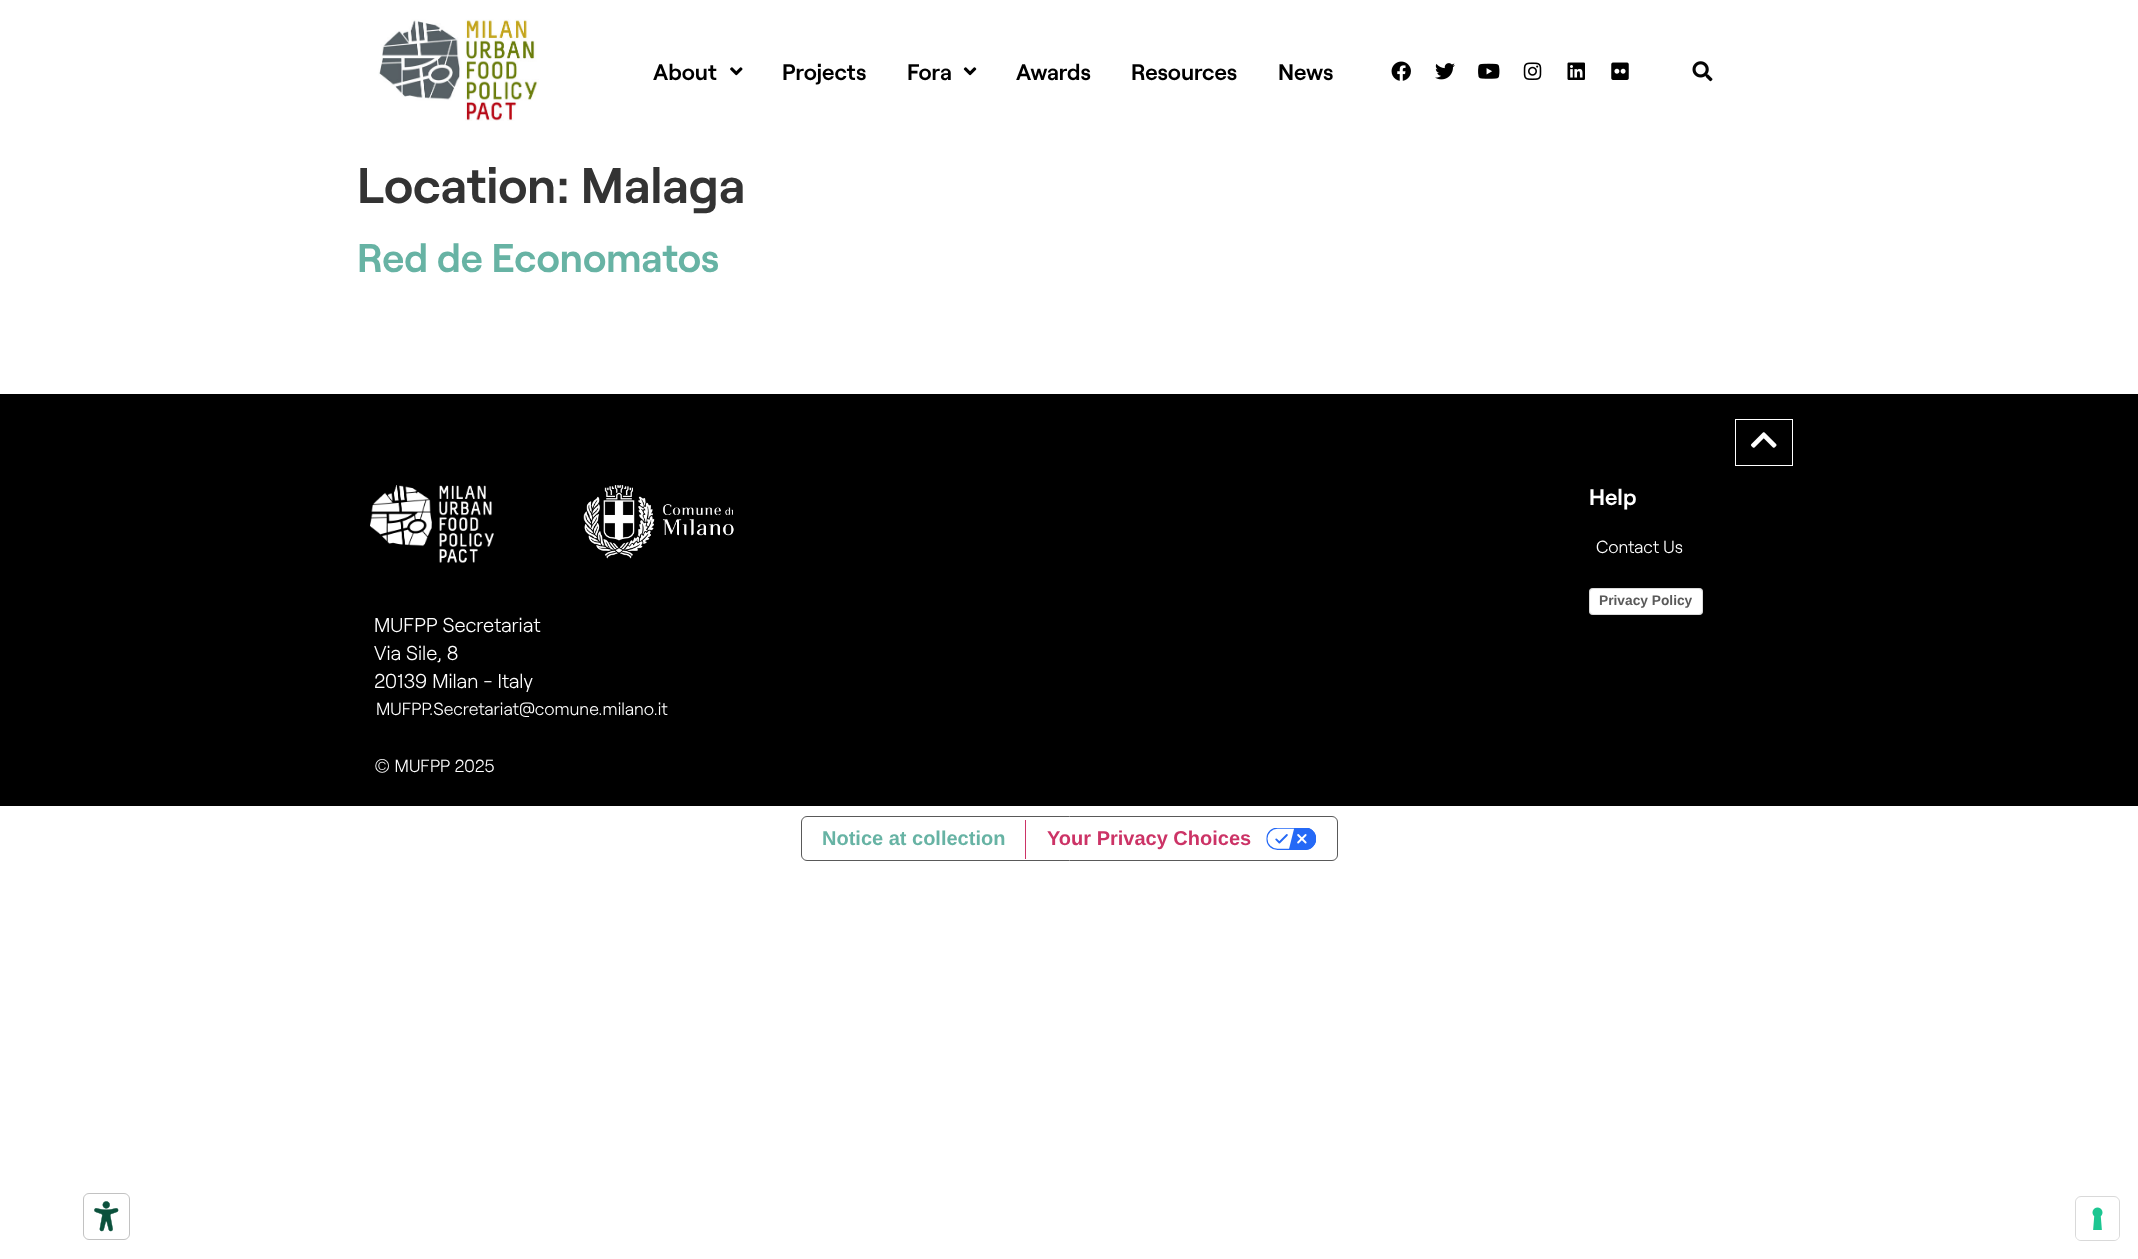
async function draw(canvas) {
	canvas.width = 2138;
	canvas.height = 1259;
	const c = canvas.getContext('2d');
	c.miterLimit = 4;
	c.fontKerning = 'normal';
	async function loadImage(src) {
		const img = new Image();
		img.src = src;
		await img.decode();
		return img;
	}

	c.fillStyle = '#fff';
	c.fillRect(0, 0, 2138, 1259);
	c.drawImage(await loadImage('img1.png'), 378, 19, 161, 102);
	c.font = '600 22.5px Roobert';
	c.fillStyle = '#000';
	c.fillText('About', 653, 80);
	c.drawImage(await loadImage('img2.png'), 730, 67, 13, 9);
	c.fillText('Projects', 782, 80);
	c.fillText('Fora', 907, 80);
	c.drawImage(await loadImage('img3.png'), 963, 67, 14, 9);
	for (const [text, x, y] of [
		['Awards', 1016, 80],
		['Resources', 1131, 80],
		['News', 1278, 80],
	]) {
		c.fillText(text, x, y);
	}
	c.drawImage(await loadImage('img4.png'), 1391, 61, 20, 20);
	c.drawImage(await loadImage('img5.png'), 1435, 63, 20, 17);
	c.drawImage(await loadImage('img6.png'), 1478, 63, 22, 16);
	c.drawImage(await loadImage('img7.png'), 1523, 62, 19, 18);
	c.drawImage(await loadImage('img8.png'), 1567, 62, 18, 18);
	c.drawImage(await loadImage('img9.png'), 1611, 62, 18, 18);
	c.drawImage(await loadImage('img10.png'), 1692, 61, 21, 21);
	c.font = '600 50px Roobert';
	c.fillStyle = '#333';
	c.fillText('Location: Malaga', 357, 203);
	c.font = '600 40px Roobert';
	c.fillStyle = '#67b3a4';
	c.fillText('Red de Economatos', 357, 272);
	c.fillStyle = '#000';
	c.fillRect(0, 394, 2138, 412);
	c.strokeStyle = '#fff';
	c.strokeRect(1735.5, 419.5, 57, 46);
	c.drawImage(await loadImage('img11.png'), 1751, 432, 26, 16);
	c.font = '600 22.5px Roobert';
	c.fillStyle = '#fff';
	c.fillText('Help', 1589, 505);
	c.font = '300 17.5px Roobert';
	c.fillText('Contact Us', 1596, 553);
	c.beginPath();
	c.roundRect(1589, 588, 114, 27, 4);
	c.fill();
	c.beginPath();
	c.roundRect(1589.5, 588.5, 113, 26, 3.5);
	c.strokeStyle = '#00000026';
	c.stroke();
	c.font = 'bold 13.75px Liberation Sans';
	c.fillStyle = '#595959';
	c.fillText('Privacy Policy', 1599, 605);
	c.drawImage(await loadImage('img12.png'), 370, 485, 124, 78);
	c.drawImage(await loadImage('img13.png'), 583, 485, 151, 74);
	c.font = '300 20px Roobert';
	c.fillStyle = '#fff';
	for (const [text, x, y] of [
		['MUFPP Secretariat', 374, 632],
		['Via Sile, 8', 374, 660],
		['20139 Milan - Italy', 374, 688],
	]) {
		c.fillText(text, x, y);
	}
	c.font = '300 17.5px Roobert';
	c.fillText('MUFPP.Secretariat@comune.milano.it', 376, 715);
	c.fillText('© MUFPP 2025', 374, 772);
	c.beginPath();
	c.roundRect(801.5, 816.5, 536, 44, 5.5);
	c.strokeStyle = '#595959';
	c.stroke();
	c.font = 'bold 20px Liberation Sans';
	c.fillStyle = '#67b3a4';
	c.fillText('Notice at collection', 822, 845);
	c.fillStyle = '#c36';
	c.fillRect(1025, 820, 1, 39);
	c.fillText('Your Privacy Choices', 1047, 845);
	c.drawImage(await loadImage('img14.png'), 1266, 828, 50, 22);
	c.drawImage(await loadImage('img15.png'), 94, 1201, 25, 31);
	c.beginPath();
	c.roundRect(83.5, 1193.5, 46, 46, 5.5);
	c.strokeStyle = '#c2c2c2';
	c.stroke();
	c.beginPath();
	c.roundRect(2075.5, 1196.5, 44, 44, 5.5);
	c.strokeStyle = '#d9d9d9';
	c.stroke();
	c.fillStyle = '#fff';
	c.beginPath();
	c.roundRect(2076, 1198, 43, 42, 5);
	c.fill();
	c.drawImage(await loadImage('img16.png'), 2092, 1207, 11, 23);
}

draw(document.querySelector('canvas'));
